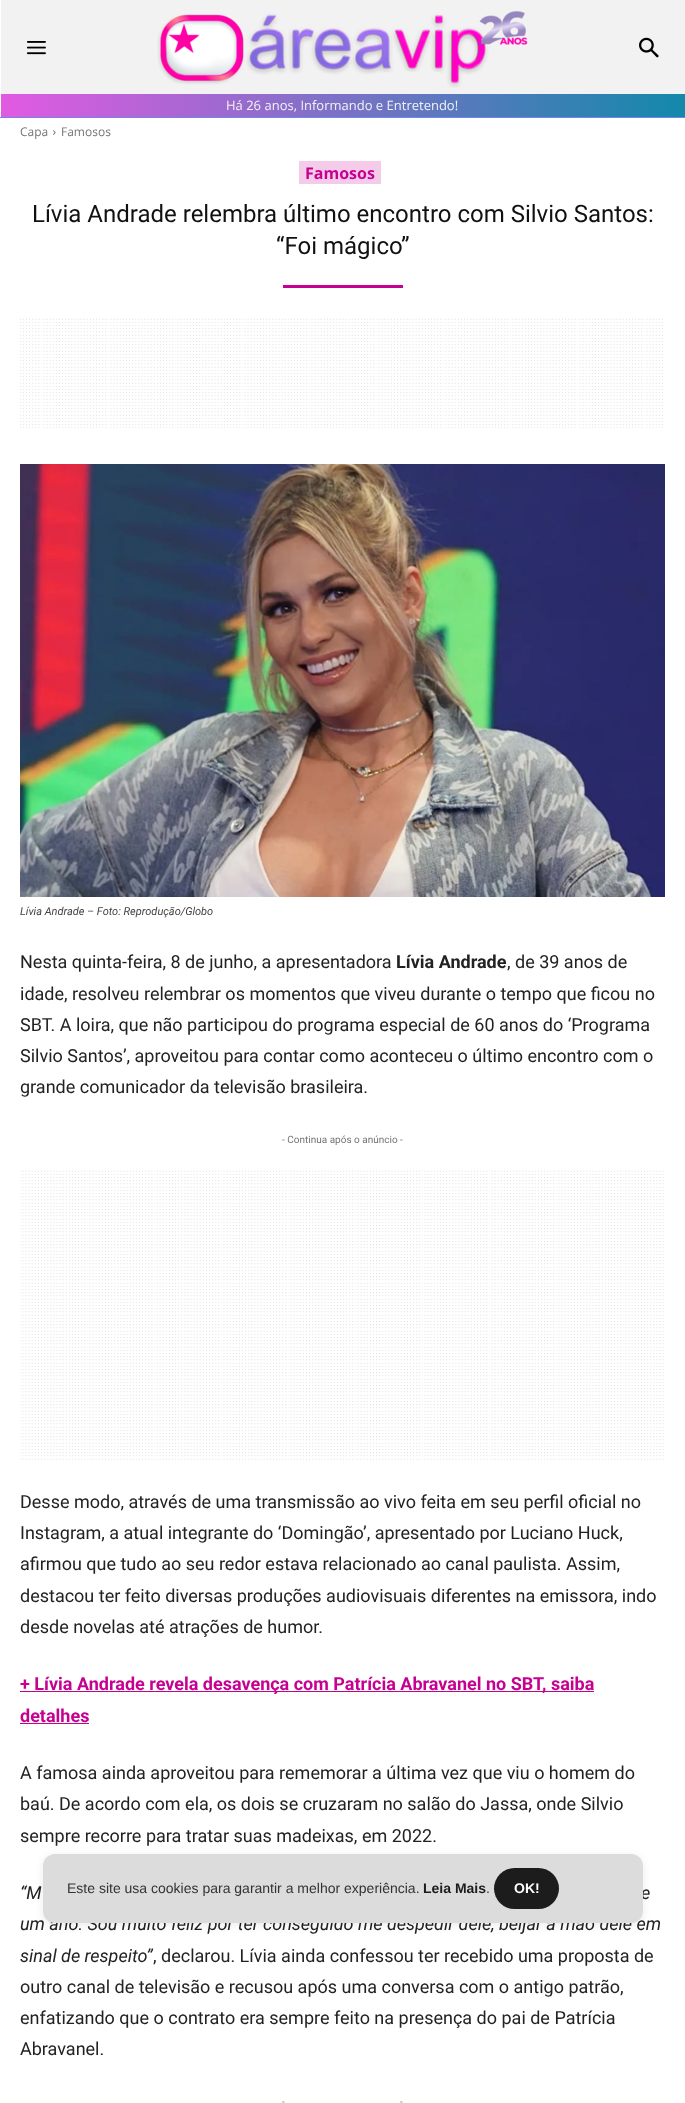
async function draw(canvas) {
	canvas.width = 685;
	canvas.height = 2103;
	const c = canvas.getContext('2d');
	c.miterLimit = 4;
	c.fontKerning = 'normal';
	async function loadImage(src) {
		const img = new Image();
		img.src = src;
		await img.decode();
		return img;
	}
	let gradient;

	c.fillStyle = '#fff';
	c.fillRect(0, 0, 685, 2103);
	c.fillStyle = '#6e88e8';
	c.fillRect(0, 117, 685, 1);
	c.fillStyle = '#f2f2f2';
	c.fillRect(1, 0, 684, 94);
	c.drawImage(await loadImage('img1.png'), 27, 41, 19, 14);
	c.drawImage(await loadImage('img2.png'), 157, 11, 371, 77);
	c.drawImage(await loadImage('img3.png'), 639, 37, 20, 21);
	gradient = c.createLinearGradient(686, 106, 0.5, 105);
	gradient.addColorStop(0, '#1289aa');
	gradient.addColorStop(1, '#e25ae2');
	c.fillStyle = gradient;
	c.fillRect(1, 94, 684, 23);
	c.font = '13px Open Sans';
	c.fillStyle = '#f2f2f2';
	c.fillText('Há 26 anos, Informando e Entretendo!', 226, 110);
	c.font = '12px Open Sans';
	c.fillStyle = '#747474';
	c.fillText('Capa', 20, 136);
	c.drawImage(await loadImage('img4.png'), 53, 130, 3, 5);
	c.fillText('Famosos', 61, 136);
	c.fillStyle = '#f4cce9';
	c.fillRect(299, 161, 82, 23);
	c.font = 'bold 16px Open Sans';
	c.fillStyle = '#c60091';
	c.fillText('Famosos', 305, 179);
	c.font = '24px Roboto';
	c.fillStyle = '#111';
	c.fillText('Lívia Andrade relembra último encontro com Silvio Santos:', 32, 222);
	c.fillText('“Foi mágico”', 276, 254);
	c.fillStyle = '#c60091';
	c.fillRect(283, 285, 120, 3);
	c.drawImage(await loadImage('img5.png'), 20, 318, 643, 110);
	c.drawImage(await loadImage('img6.png'), 20, 464, 645, 433);
	c.font = 'italic 11px Roboto';
	c.fillStyle = '#444';
	c.fillText('Lívia Andrade – Foto: Reprodução/Globo', 20, 915);
	c.font = '18px Roboto';
	c.fillStyle = '#222';
	c.fillText('Nesta quinta-feira, 8 de junho, a apresentadora', 20, 968);
	c.font = 'bold 18px Roboto';
	c.fillText('Lívia Andrade', 396, 968);
	c.font = '18px Roboto';
	for (const [text, x, y] of [
		[', de 39 anos de', 507, 968],
		['idade, resolveu relembrar os momentos que viveu durante o tempo que ficou no', 20, 1000],
		['SBT. A loira, que não participou do programa especial de 60 anos do ‘Programa', 20, 1031],
		['Silvio Santos’, aproveitou para contar como aconteceu o último encontro com o', 20, 1062],
		['grande comunicador da televisão brasileira.', 20, 1093],
	]) {
		c.fillText(text, x, y);
	}
	c.font = '10px Roboto';
	c.fillStyle = '#747474';
	c.fillText('- Continua após o anúncio -', 282, 1143);
	c.drawImage(await loadImage('img7.png'), 20, 1170, 644, 290);
	c.font = '18px Roboto';
	c.fillStyle = '#222';
	for (const [text, x, y] of [
		['Desse modo, através de uma transmissão ao vivo feita em seu perfil oficial no', 20, 1508],
		['Instagram, a atual integrante do ‘Domingão’, apresentado por Luciano Huck,', 20, 1539],
		['afirmou que tudo ao seu redor estava relacionado ao canal paulista. Assim,', 20, 1570],
		['destacou ter feito diversas produções audiovisuais diferentes na emissora, indo', 20, 1602],
		['desde novelas até atrações de humor.', 20, 1633],
	]) {
		c.fillText(text, x, y);
	}
	c.fillStyle = '#c60091';
	c.fillRect(20, 1691, 574, 1);
	c.font = 'bold 18px Roboto';
	c.fillText('+ Lívia Andrade revela desavença com Patrícia Abravanel no SBT, saiba', 20, 1690);
	c.fillText('detalhes', 20, 1722);
	c.fillRect(20, 1723, 69, 1);
	c.font = '18px Roboto';
	c.fillStyle = '#222';
	for (const [text, x, y] of [
		['A famosa ainda aproveitou para rememorar a última vez que viu o homem do', 20, 1779],
		['baú. De acordo com ela, os dois se cruzaram no salão do Jassa, onde Silvio', 20, 1810],
		['sempre recorre para tratar suas madeixas, em 2022.', 20, 1842],
	]) {
		c.fillText(text, x, y);
	}
	c.font = 'italic 18px Roboto';
	for (const [text, x, y] of [
		['“M', 20, 1899],
		['e', 641, 1899],
		['um ano. Sou muito feliz por ter conseguido me despedir dele, beijar a mão dele em', 20, 1930],
		['sinal de respeito”', 20, 1962],
	]) {
		c.fillText(text, x, y);
	}
	c.font = '18px Roboto';
	for (const [text, x, y] of [
		[', declarou. Lívia ainda confessou ter recebido uma proposta de', 153, 1962],
		['outro canal de televisão e recusou após uma conversa com o antigo patrão,', 20, 1993],
		['enfatizando que o contrato era sempre feito na presença do pai de Patrícia', 20, 2024],
		['Abravanel.', 20, 2055],
	]) {
		c.fillText(text, x, y);
	}
	c.font = '10px Roboto';
	c.fillStyle = '#747474';
	c.fillText('-', 282, 2105);
	c.fillText('-', 400, 2105);
	c.fillStyle = '#00000014';
	c.filter = 'blur(4px)';
	c.beginPath();
	c.roundRect(43, 1856, 600, 69, 12);
	c.fill();
	c.filter = 'none';
	c.fillStyle = '#dcdcdc';
	c.beginPath();
	c.roundRect(43, 1854, 600, 69, 12);
	c.fill();
	c.font = '14px Liberation Sans';
	c.fillStyle = '#333';
	c.fillText('Este site usa cookies para garantir a melhor experiência.', 67, 1893);
	c.font = 'bold 14px Liberation Sans';
	c.fillStyle = '#1c1c1c';
	c.fillText('Leia Mais', 423, 1893);
	c.font = '14px Liberation Sans';
	c.fillStyle = '#333';
	c.fillText('.', 486, 1893);
	c.fillStyle = '#1c1c1c';
	c.beginPath();
	c.roundRect(494, 1868, 65, 41, 20.5);
	c.fill();
	c.font = 'bold 14px Liberation Sans';
	c.fillStyle = '#fff';
	c.fillText('OK!', 514, 1893);
}

draw(document.querySelector('canvas'));
